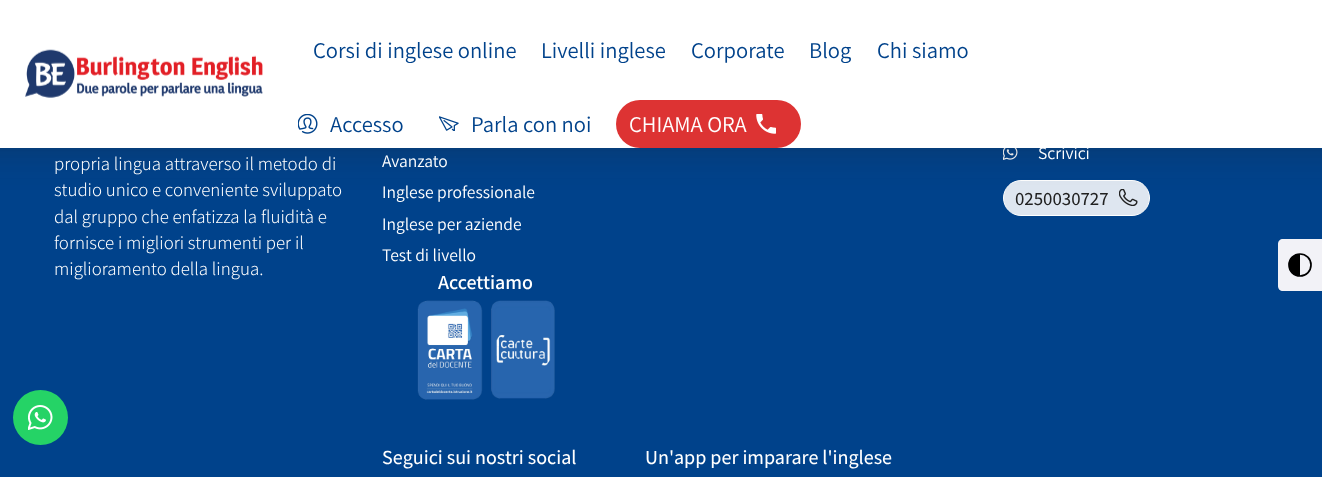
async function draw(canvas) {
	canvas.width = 1322;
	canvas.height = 477;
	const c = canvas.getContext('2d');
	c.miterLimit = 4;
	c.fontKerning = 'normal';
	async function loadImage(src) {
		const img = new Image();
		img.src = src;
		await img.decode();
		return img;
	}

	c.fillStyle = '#00428b';
	c.fillRect(0, 0, 1322, 477);
	c.drawImage(await loadImage('img6.png'), 1003, 148, 15, 12);
	c.fillStyle = '#dee6f0';
	c.beginPath();
	c.roundRect(1003.5, 180.5, 146, 35, 17.5);
	c.fill();
	c.strokeStyle = '#fff';
	c.stroke();
	c.drawImage(await loadImage('img7.png'), 1119, 189, 19, 17);
	c.fillStyle = '#2121214d';
	c.filter = 'blur(19px)';
	c.beginPath();
	c.rect(-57, 0, 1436, 148);
	c.fill();
	c.filter = 'none';
	c.fillStyle = '#fff';
	c.fillRect(0, 0, 1322, 148);
	c.drawImage(await loadImage('img1.png'), 25, 49, 238, 49);
	c.font = '22.5px Assistant';
	c.fillStyle = '#00428b';
	for (const [text, x, y] of [
		['Corsi di inglese online', 313, 58],
		['Livelli inglese', 541, 58],
		['Corporate', 691, 58],
		['Blog', 809, 58],
		['Chi siamo', 877, 58],
	]) {
		c.fillText(text, x, y);
	}
	c.drawImage(await loadImage('img2.png'), 298, 114, 20, 20);
	c.fillText('Accesso', 330, 132);
	c.drawImage(await loadImage('img3.png'), 439, 116, 20, 15);
	c.fillText('Parla con noi', 471, 132);
	c.fillStyle = '#d33';
	c.beginPath();
	c.roundRect(616, 100, 185, 48, 24);
	c.fill();
	c.fillStyle = '#fff';
	c.fillText('CHIAMA ORA', 629, 132);
	c.drawImage(await loadImage('img4.png'), 756, 114, 20, 20);
	c.font = '300 18.75px Assistant';
	for (const [text, x, y] of [
		['propria lingua attraverso il metodo di', 54, 170],
		['studio unico e conveniente sviluppato', 54, 196],
		['dal gruppo che enfatizza la fluidità e', 54, 223],
		['fornisce i migliori strumenti per il', 54, 249],
		['miglioramento della lingua.', 54, 275],
	]) {
		c.fillText(text, x, y);
	}
	c.fillStyle = '#25d366';
	c.beginPath();
	c.arc(40.5, 417.5, 27.5, 0, 2 * Math.PI);
	c.fill();
	c.drawImage(await loadImage('img5.png'), 28, 405, 25, 25);
	c.font = '17.5px Assistant';
	c.fillStyle = '#fff';
	for (const [text, x, y] of [
		['Avanzato', 382, 167],
		['Inglese professionale', 382, 198],
		['Inglese per aziende', 382, 230],
		['Test di livello', 382, 261],
		['Scrivici', 1038, 159],
	]) {
		c.fillText(text, x, y);
	}
	c.font = '500 18.75px Assistant';
	c.fillStyle = '#212121';
	c.fillText('0250030727', 1015, 205);
	c.font = '600 20px Assistant';
	c.fillStyle = '#fff';
	c.fillText('Accettiamo', 438, 289);
	c.drawImage(await loadImage('img8.png'), 417, 300, 66, 100);
	c.drawImage(await loadImage('img9.png'), 491, 300, 64, 99);
	c.font = '500 20px Assistant';
	c.fillText('Seguici sui nostri social', 382, 464);
	c.fillText('Un\'app per imparare l\'inglese', 645, 464);
	c.fillStyle = '#f2f2f7';
	c.beginPath();
	c.moveTo(1283, 239);
	c.lineTo(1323, 239);
	c.lineTo(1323, 291);
	c.lineTo(1283, 291);
	c.bezierCurveTo(1280, 291, 1278, 289, 1278, 286);
	c.lineTo(1278, 244);
	c.bezierCurveTo(1278, 241, 1280, 239, 1283, 239);
	c.closePath();
	c.fill();
	c.beginPath();
	c.arc(1300, 265, 11, 0, 2 * Math.PI);
	c.strokeStyle = '#000';
	c.lineWidth = 1.7;
	c.stroke();
	c.fillStyle = '#000';
	c.beginPath();
	c.moveTo(1300, 276);
	c.bezierCurveTo(1285.5, 276, 1285.5, 254, 1300, 254);
	c.closePath();
	c.fill();
}

draw(document.querySelector('canvas'));
